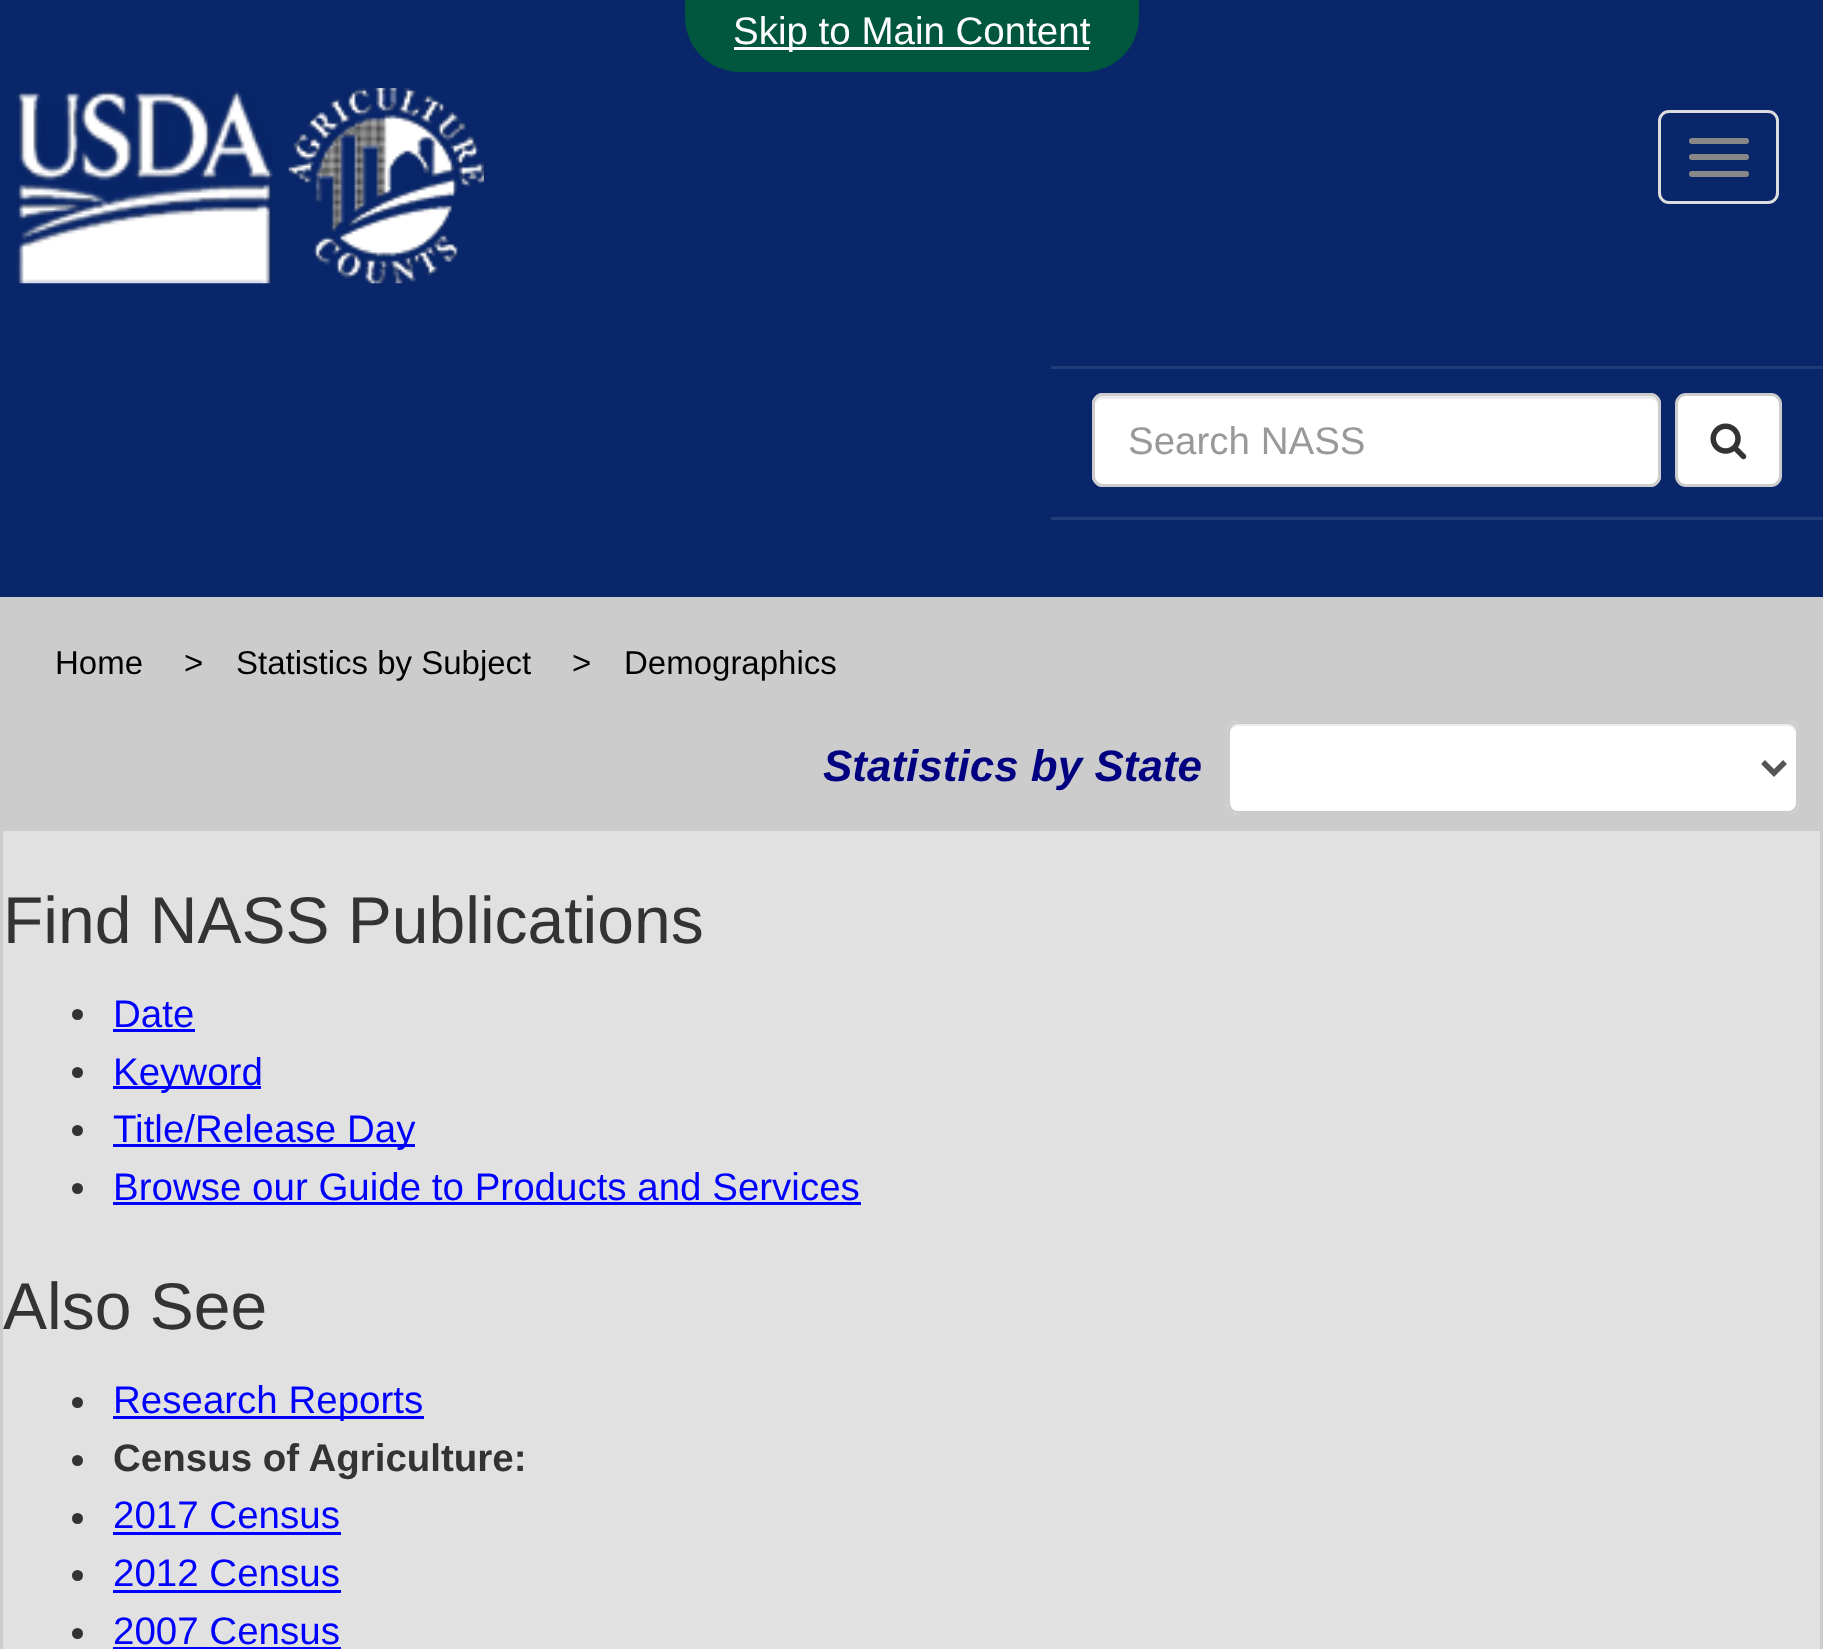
async function draw(canvas) {
	canvas.width = 1823;
	canvas.height = 1649;
	const c = canvas.getContext('2d');
	c.miterLimit = 4;
	c.fontKerning = 'normal';
	async function loadImage(src) {
		const img = new Image();
		img.src = src;
		await img.decode();
		return img;
	}

	c.fillStyle = '#09266a';
	c.fillRect(0, 0, 1823, 1649);
	c.fillStyle = '#00573d';
	c.beginPath();
	c.roundRect(685, 0, 454, 72, [0, 0, 55, 55]);
	c.fill();
	c.fillStyle = '#fff';
	c.fillRect(734, 47, 355, 3);
	c.font = '38.5px Liberation Sans';
	c.fillText('Skip to Main Content', 733, 44);
	c.drawImage(await loadImage('img1.png'), 16, 90, 258, 194);
	c.drawImage(await loadImage('img2.png'), 288, 88, 196, 196);
	c.beginPath();
	c.roundRect(1659.5, 111.5, 118, 91, 9.5);
	c.strokeStyle = '#ddd';
	c.lineWidth = 3;
	c.stroke();
	c.fillStyle = '#888';
	c.beginPath();
	c.roundRect(1689, 138, 60, 6, 3);
	c.fill();
	c.beginPath();
	c.roundRect(1689, 154, 60, 6, 3);
	c.fill();
	c.beginPath();
	c.roundRect(1689, 171, 60, 6, 3);
	c.fill();
	c.fillStyle = '#223c79';
	c.fillRect(1051, 517, 772, 3);
	c.fillRect(1051, 366, 772, 3);
	c.fillStyle = '#fff';
	c.beginPath();
	c.roundRect(1092, 393, 569, 94, 11);
	c.fill();
	c.fillStyle = '#ececec';
	c.beginPath();
	c.moveTo(1103, 399);
	c.lineTo(1650, 399);
	c.bezierCurveTo(1655, 399, 1658, 402, 1658, 407);
	c.lineTo(1658, 404);
	c.bezierCurveTo(1658, 400, 1654, 396, 1650, 396);
	c.lineTo(1103, 396);
	c.bezierCurveTo(1099, 396, 1096, 399, 1095, 403);
	c.bezierCurveTo(1097, 400, 1100, 399, 1103, 399);
	c.closePath();
	c.fill();
	c.beginPath();
	c.roundRect(1093.5, 394.5, 566, 91, 9.5);
	c.strokeStyle = '#ccc';
	c.stroke();
	c.fillStyle = '#999';
	c.fillText('Search NASS', 1128, 454);
	c.fillStyle = '#fff';
	c.beginPath();
	c.roundRect(1676.5, 394.5, 104, 91, 9.5);
	c.fill();
	c.stroke();
	c.drawImage(await loadImage('img3.png'), 1710, 423, 37, 37);
	c.fillStyle = '#ccc';
	c.fillRect(0, 597, 1823, 231);
	c.font = '33px Liberation Sans';
	c.fillStyle = '#000';
	for (const [text, x, y] of [
		['Home', 55, 674],
		['>', 184, 674],
		['Statistics by Subject', 236, 674],
		['>', 572, 674],
		['Demographics', 624, 674],
	]) {
		c.fillText(text, x, y);
	}
	c.font = 'italic bold 44px Liberation Sans';
	c.fillStyle = '#000080';
	c.fillText('Statistics by State', 823, 781);
	c.fillStyle = '#fff';
	c.beginPath();
	c.roundRect(1227, 721, 572, 93, 11);
	c.fill();
	c.fillStyle = '#ececec';
	c.beginPath();
	c.moveTo(1238, 726);
	c.lineTo(1788, 726);
	c.bezierCurveTo(1792, 726, 1796, 730, 1796, 734);
	c.bezierCurveTo(1796, 729, 1794, 723, 1788, 723);
	c.lineTo(1237, 723);
	c.bezierCurveTo(1231, 723, 1229, 729, 1229, 734);
	c.bezierCurveTo(1229, 730, 1233, 726, 1238, 726);
	c.closePath();
	c.fill();
	c.beginPath();
	c.roundRect(1228.5, 722.5, 569, 90, 9.5);
	c.stroke();
	c.beginPath();
	c.moveTo(1763, 762);
	c.lineTo(1774, 773);
	c.lineTo(1785, 762);
	c.strokeStyle = '#555';
	c.lineWidth = 5.5;
	c.stroke();
	c.fillStyle = '#e1e1e1';
	c.beginPath();
	c.rect(1.5, 829.5, 1820, 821);
	c.fill();
	c.strokeStyle = '#ccc';
	c.lineWidth = 3;
	c.stroke();
	c.font = '66px Liberation Sans';
	c.fillStyle = '#333';
	c.fillText('Find NASS Publications', 3, 943);
	c.beginPath();
	c.arc(77.5, 1014.5, 5.5, 0, 2 * Math.PI);
	c.fill();
	c.font = '38.5px Liberation Sans';
	c.fillStyle = '#00f';
	c.fillText('Date', 113, 1027);
	c.fillRect(113, 1029, 82, 3);
	c.fillStyle = '#333';
	c.beginPath();
	c.arc(77.5, 1072.5, 5.5, 0, 2 * Math.PI);
	c.fill();
	c.fillStyle = '#00f';
	c.fillRect(113, 1086, 148, 3);
	c.fillText('Keyword', 113, 1085);
	c.fillStyle = '#333';
	c.beginPath();
	c.arc(77.5, 1130.5, 5.5, 0, 2 * Math.PI);
	c.fill();
	c.fillStyle = '#00f';
	c.fillRect(113, 1144, 302, 3);
	c.fillText('Title/Release Day', 113, 1142);
	c.fillStyle = '#333';
	c.beginPath();
	c.arc(77.5, 1188.5, 5.5, 0, 2 * Math.PI);
	c.fill();
	c.fillStyle = '#00f';
	c.fillText('Browse our Guide to Products and Services', 113, 1200);
	c.fillRect(113, 1202, 748, 3);
	c.font = '66px Liberation Sans';
	c.fillStyle = '#333';
	c.fillText('Also See', 3, 1329);
	c.beginPath();
	c.arc(77.5, 1402.5, 5.5, 0, 2 * Math.PI);
	c.fill();
	c.fillStyle = '#00f';
	c.fillRect(113, 1416, 311, 3);
	c.font = '38.5px Liberation Sans';
	c.fillText('Research Reports', 113, 1413);
	c.fillStyle = '#333';
	c.beginPath();
	c.arc(77.5, 1460.5, 5.5, 0, 2 * Math.PI);
	c.fill();
	c.font = 'bold 38.5px Liberation Sans';
	c.fillText('Census of Agriculture:', 113, 1471);
	c.beginPath();
	c.arc(77.5, 1518.5, 5.5, 0, 2 * Math.PI);
	c.fill();
	c.font = '38.5px Liberation Sans';
	c.fillStyle = '#00f';
	c.fillText('2017 Census', 113, 1528);
	c.fillRect(113, 1532, 228, 3);
	c.fillStyle = '#333';
	c.beginPath();
	c.arc(77.5, 1575.5, 5.5, 0, 2 * Math.PI);
	c.fill();
	c.fillStyle = '#00f';
	c.fillText('2012 Census', 113, 1586);
	c.fillRect(113, 1590, 228, 3);
	c.fillStyle = '#333';
	c.beginPath();
	c.arc(77.5, 1633.5, 5.5, 0, 2 * Math.PI);
	c.fill();
	c.fillStyle = '#00f';
	c.fillText('2007 Census', 113, 1644);
	c.fillRect(113, 1647, 228, 2);
}

draw(document.querySelector('canvas'));
